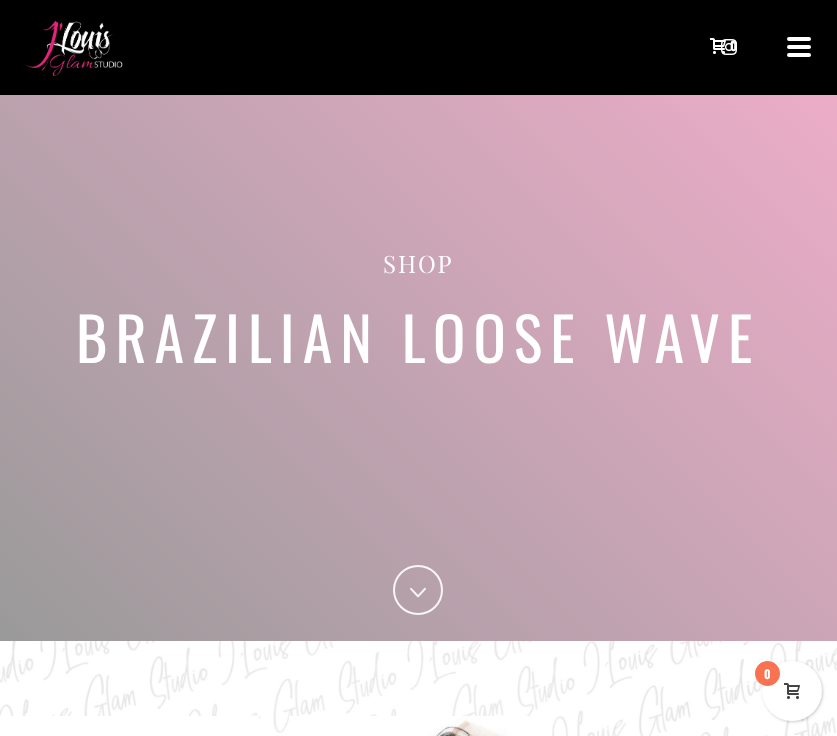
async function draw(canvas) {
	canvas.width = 837;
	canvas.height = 736;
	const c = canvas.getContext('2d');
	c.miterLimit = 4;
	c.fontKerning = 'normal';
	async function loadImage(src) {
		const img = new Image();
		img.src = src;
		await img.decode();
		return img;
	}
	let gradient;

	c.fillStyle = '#fff';
	c.fillRect(0, 0, 837, 736);
	c.fillStyle = '#000';
	c.fillRect(0, 0, 837, 95);
	c.drawImage(await loadImage('img3.png'), 710, 38, 16, 16);
	c.font = 'bold 13px Oswald';
	c.fillStyle = '#fff';
	c.fillText('0', 730, 51);
	c.drawImage(await loadImage('img1.png'), 721, 39, 16, 16);
	c.drawImage(await loadImage('img2.png'), 24, 20, 99, 56);
	c.beginPath();
	c.roundRect(787, 37, 24, 4, 2);
	c.fill();
	c.beginPath();
	c.roundRect(787, 45, 24, 4, 2);
	c.fill();
	c.beginPath();
	c.roundRect(787, 53, 24, 4, 2);
	c.fill();
	gradient = c.createLinearGradient(49, 690, 788, -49);
	gradient.addColorStop(0, '#9a9a9a');
	gradient.addColorStop(1, '#f2aecc');
	c.fillStyle = gradient;
	c.fillRect(0, 95, 837, 546);
	c.letterSpacing = '2px';
	c.font = '24px Playfair Display';
	c.fillStyle = '#fff';
	c.fillText('SHOP', 383, 273);
	c.letterSpacing = '8px';
	c.font = '60px Oswald';
	c.fillText('BRAZILIAN LOOSE WAVE', 76, 363);
	c.beginPath();
	c.arc(418, 590, 24, 0, 2 * Math.PI);
	c.strokeStyle = '#ffffffe6';
	c.lineWidth = 2;
	c.stroke();
	c.drawImage(await loadImage('img4.png'), 410, 587, 16, 11);
	c.drawImage(await loadImage('img5.png'), 0, 641, 837, 95);
	c.fillRect(0, 716, 259, 20);
	c.drawImage(await loadImage('img6.png'), 289, 716, 240, 20);
	c.fillStyle = '#00000033';
	c.filter = 'blur(1.5px)';
	c.beginPath();
	c.roundRect(763, 662, 60, 60, 30);
	c.fill();
	c.filter = 'none';
	c.fillStyle = '#fff';
	c.beginPath();
	c.arc(792, 691, 30, 0, 2 * Math.PI);
	c.fill();
	c.fillStyle = '#f97352';
	c.beginPath();
	c.arc(767.5, 673.5, 12.5, 0, 2 * Math.PI);
	c.fill();
	c.letterSpacing = '0px';
	c.font = 'bold 12px Oswald';
	c.fillStyle = '#fff';
	c.fillText('0', 764, 679);
	c.drawImage(await loadImage('img7.png'), 784, 683, 16, 16);
}

draw(document.querySelector('canvas'));
